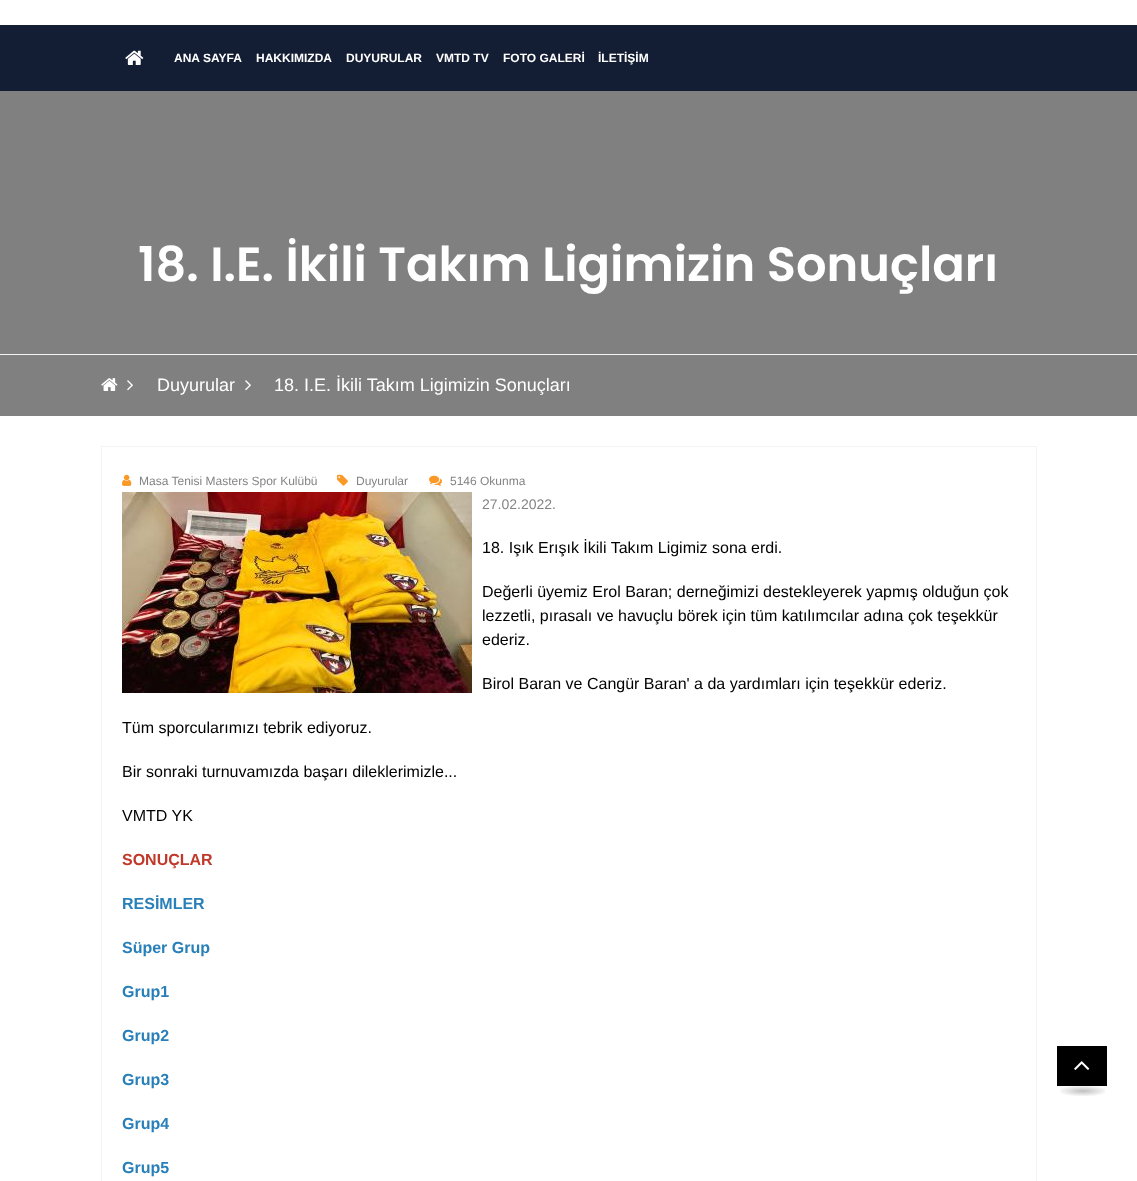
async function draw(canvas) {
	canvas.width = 1137;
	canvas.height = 1181;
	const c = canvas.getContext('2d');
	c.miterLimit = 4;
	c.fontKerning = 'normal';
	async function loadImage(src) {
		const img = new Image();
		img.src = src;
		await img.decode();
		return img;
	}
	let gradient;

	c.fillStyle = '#fff';
	c.fillRect(0, 0, 1137, 1181);
	c.fillStyle = '#131d33';
	c.fillRect(0, 25, 1137, 66);
	c.drawImage(await loadImage('img1.png'), 125, 50, 19, 15);
	c.font = 'bold 12px Liberation Sans';
	c.fillStyle = '#fff';
	for (const [text, x, y] of [
		['ANA SAYFA', 174, 62],
		['HAKKIMIZDA', 256, 62],
		['DUYURULAR', 346, 62],
		['VMTD TV', 436, 62],
		['FOTO GALERİ', 503, 62],
		['İLETİŞİM', 598, 62],
	]) {
		c.fillText(text, x, y);
	}
	c.fillStyle = '#808080';
	c.fillRect(0, 91, 1137, 325);
	c.font = '600 48px Poppins';
	c.fillStyle = '#fff';
	c.fillText('18. I.E. İkili Takım Ligimizin Sonuçları', 138, 281);
	c.fillStyle = '#f4f4f4';
	c.fillRect(0, 354, 1137, 1);
	c.drawImage(await loadImage('img2.png'), 101, 378, 17, 13);
	c.drawImage(await loadImage('img3.png'), 127, 380, 6, 11);
	c.font = '18px Liberation Sans';
	c.fillStyle = '#fff';
	c.fillText('Duyurular', 157, 391);
	c.drawImage(await loadImage('img3.png'), 245, 380, 6, 11);
	c.fillText('18. I.E. İkili Takım Ligimizin Sonuçları', 274, 391);
	c.strokeStyle = '#f4f4f4';
	c.strokeRect(101.5, 446.5, 935, 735);
	c.drawImage(await loadImage('img4.png'), 122, 474, 10, 12);
	c.font = '12px Liberation Sans';
	c.fillStyle = '#848484';
	c.fillText('Masa Tenisi Masters Spor Kulübü', 139, 485);
	c.drawImage(await loadImage('img5.png'), 337, 474, 11, 12);
	c.fillText('Duyurular', 356, 485);
	c.drawImage(await loadImage('img6.png'), 429, 475, 13, 11);
	c.fillText('5146 Okunma', 450, 485);
	c.drawImage(await loadImage('img7.png'), 122, 492, 350, 201);
	c.font = '14px Liberation Sans';
	c.fillText('27.02.2022.', 482, 509);
	c.font = '16px Liberation Sans';
	c.fillStyle = '#000';
	for (const [text, x, y] of [
		['18. Işık Erışık İkili Takım Ligimiz sona erdi.', 482, 553],
		['Değerli üyemiz Erol Baran; derneğimizi destekleyerek yapmış olduğun çok', 482, 597],
		['lezzetli, pırasalı ve havuçlu börek için tüm katılımcılar adına çok teşekkür', 482, 621],
		['ederiz.', 482, 645],
		['Birol Baran ve Cangür Baran\' a da yardımları için teşekkür ederiz.', 482, 689],
		['Tüm sporcularımızı tebrik ediyoruz.', 122, 733],
		['Bir sonraki turnuvamızda başarı dileklerimizle...', 122, 777],
		['VMTD YK', 122, 821],
	]) {
		c.fillText(text, x, y);
	}
	c.font = 'bold 16px Liberation Sans';
	c.fillStyle = '#c0392b';
	c.fillText('SONUÇLAR', 122, 865);
	c.fillStyle = '#2980b9';
	for (const [text, x, y] of [
		['RESİMLER', 122, 909],
		['Süper Grup', 122, 953],
		['Grup1', 122, 997],
		['Grup2', 122, 1041],
		['Grup3', 122, 1085],
		['Grup4', 122, 1129],
		['Grup5', 122, 1173],
	]) {
		c.fillText(text, x, y);
	}
	c.fillStyle = '#000';
	c.fillRect(1057, 1046, 50, 40);
	c.drawImage(await loadImage('img8.png'), 1074, 1061, 16, 9);
	gradient = c.createRadialGradient(1083, 4917.18, 0, 1083, 4917.18, 32);
	gradient.addColorStop(0, '#bfbfbf');
	gradient.addColorStop(0.8, '#fff');
	c.fillStyle = gradient;
	c.beginPath();
	c.rect(1060, 1086, 45, 10);
	c.save();
	c.clip();
	c.scale(1, 7.1 / 32);
	c.fillRect(0, 0, 1137, 5323);
	c.restore();
}

draw(document.querySelector('canvas'));
